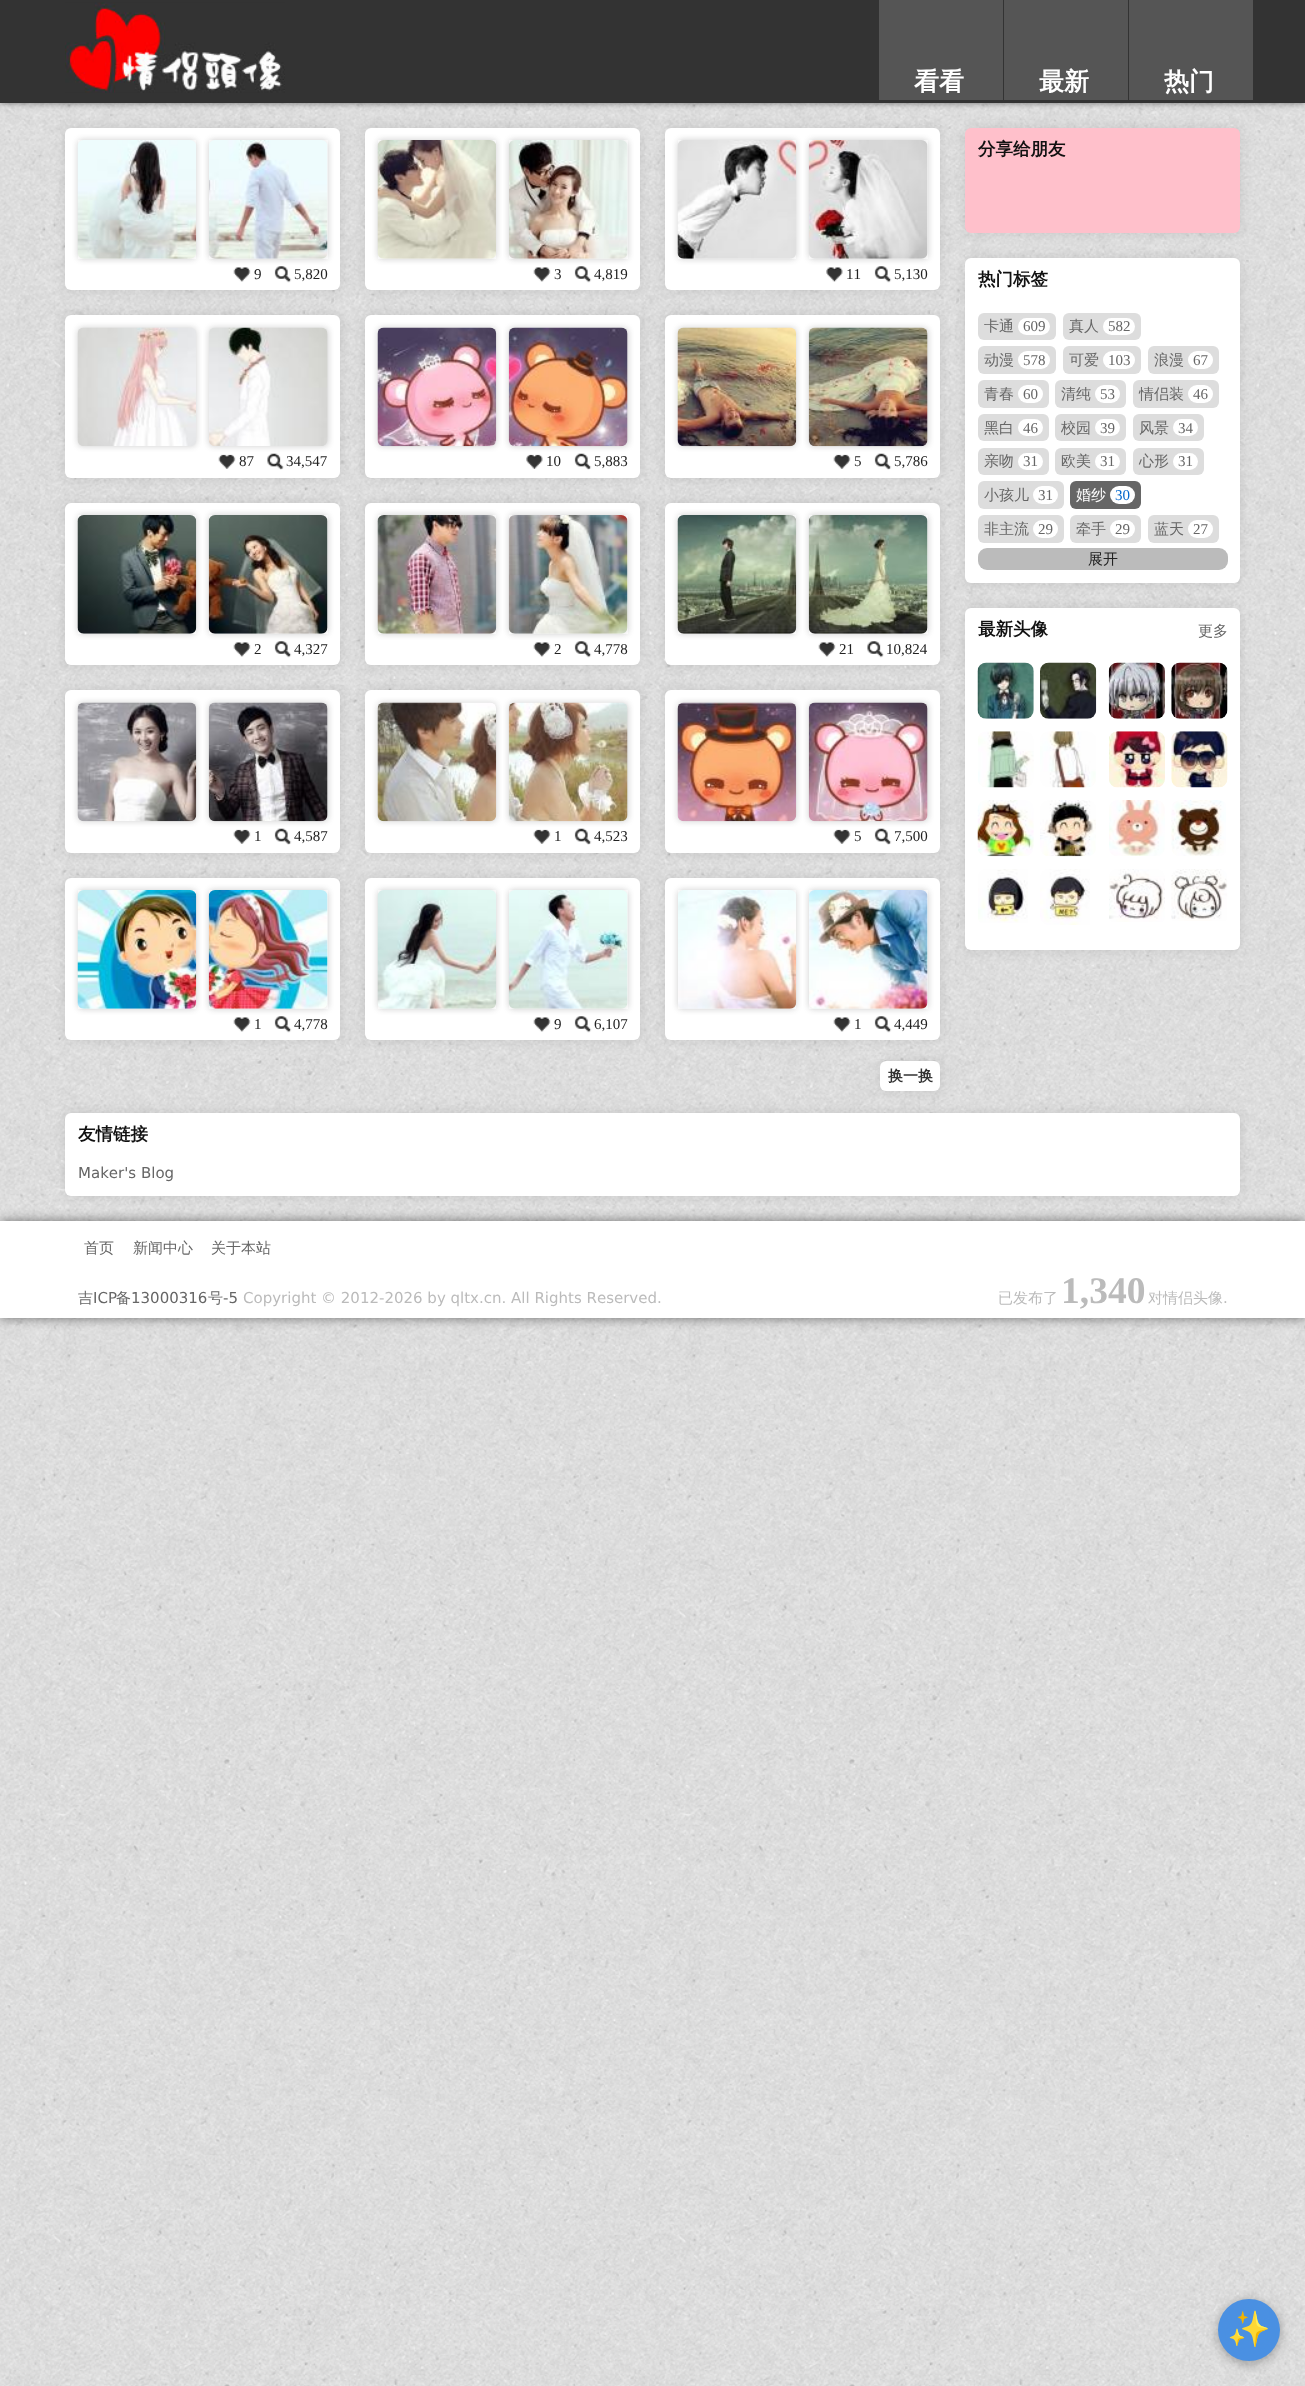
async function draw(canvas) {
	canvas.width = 1305;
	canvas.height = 2386;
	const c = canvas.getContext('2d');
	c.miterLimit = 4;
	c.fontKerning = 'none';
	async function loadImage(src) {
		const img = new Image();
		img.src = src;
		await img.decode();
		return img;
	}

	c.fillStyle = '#fff';
	c.fillRect(0, 0, 1305, 2386);
	c.drawImage(await loadImage('img1.png'), 0, 103, 1305, 2283);
	c.fillStyle = '#00000080';
	c.filter = 'blur(3px)';
	c.beginPath();
	c.rect(0, 0, 1305, 103);
	c.fill();
	c.filter = 'none';
	c.fillStyle = '#333';
	c.fillRect(0, 0, 1305, 103);
	c.drawImage(await loadImage('img2.png'), 65, 2, 220, 91);
	c.fillStyle = '#555';
	c.fillRect(879, 0, 124, 100);
	c.font = 'bold 25px WenQuanYi Zen Hei';
	c.fillStyle = '#fff';
	c.fillText('看看', 914, 90);
	c.fillStyle = '#555';
	c.fillRect(1004, 0, 124, 100);
	c.fillStyle = '#fff';
	c.fillText('最新', 1039, 90);
	c.fillStyle = '#555';
	c.fillRect(1129, 0, 124, 100);
	c.fillStyle = '#fff';
	c.fillText('热门', 1164, 90);
	c.fillStyle = '#0000001a';
	c.filter = 'blur(6px)';
	c.beginPath();
	c.roundRect(65, 128, 275, 162, 6);
	c.fill();
	c.filter = 'none';
	c.fillStyle = '#fff';
	c.beginPath();
	c.roundRect(65, 128, 275, 162, 6);
	c.fill();
	c.save();
	c.beginPath();
	c.moveTo(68, 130);
	c.lineTo(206, 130);
	c.lineTo(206, 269);
	c.lineTo(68, 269);
	c.closePath();
	c.moveTo(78, 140);
	c.lineTo(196, 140);
	c.lineTo(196, 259);
	c.lineTo(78, 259);
	c.closePath();
	c.clip('evenodd');
	c.fillStyle = '#0000001a';
	c.filter = 'blur(3px)';
	c.beginPath();
	c.rect(78, 140, 118, 119);
	c.fill();
	c.filter = 'none';
	c.restore();
	c.fillStyle = '#0000001a';
	c.filter = 'blur(3px)';
	c.beginPath();
	c.roundRect(78, 140, 118, 119, 6);
	c.fill();
	c.filter = 'none';
	c.drawImage(await loadImage('img3.png'), 77, 140, 120, 119);
	c.save();
	c.beginPath();
	c.moveTo(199, 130);
	c.lineTo(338, 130);
	c.lineTo(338, 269);
	c.lineTo(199, 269);
	c.closePath();
	c.moveTo(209, 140);
	c.lineTo(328, 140);
	c.lineTo(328, 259);
	c.lineTo(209, 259);
	c.closePath();
	c.clip('evenodd');
	c.filter = 'blur(3px)';
	c.beginPath();
	c.rect(209, 140, 119, 119);
	c.fill();
	c.filter = 'none';
	c.restore();
	c.filter = 'blur(3px)';
	c.beginPath();
	c.roundRect(209, 140, 119, 119, 6);
	c.fill();
	c.filter = 'none';
	c.drawImage(await loadImage('img4.png'), 209, 140, 119, 119);
	c.drawImage(await loadImage('img5.png'), 233, 267, 18, 15);
	c.font = '15px Liberation Serif';
	c.fillStyle = '#222';
	c.fillText('9', 254, 279);
	c.drawImage(await loadImage('img6.png'), 274, 266, 18, 17);
	c.fillText('5,820', 294, 279);
	c.fillStyle = '#0000001a';
	c.filter = 'blur(6px)';
	c.beginPath();
	c.roundRect(365, 128, 275, 162, 6);
	c.fill();
	c.filter = 'none';
	c.fillStyle = '#fff';
	c.beginPath();
	c.roundRect(365, 128, 275, 162, 6);
	c.fill();
	c.save();
	c.beginPath();
	c.moveTo(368, 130);
	c.lineTo(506, 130);
	c.lineTo(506, 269);
	c.lineTo(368, 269);
	c.closePath();
	c.moveTo(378, 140);
	c.lineTo(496, 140);
	c.lineTo(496, 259);
	c.lineTo(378, 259);
	c.closePath();
	c.clip('evenodd');
	c.fillStyle = '#0000001a';
	c.filter = 'blur(3px)';
	c.beginPath();
	c.rect(378, 140, 118, 119);
	c.fill();
	c.filter = 'none';
	c.restore();
	c.fillStyle = '#0000001a';
	c.filter = 'blur(3px)';
	c.beginPath();
	c.roundRect(378, 140, 118, 119, 6);
	c.fill();
	c.filter = 'none';
	c.drawImage(await loadImage('img7.png'), 377, 140, 119, 119);
	c.save();
	c.beginPath();
	c.moveTo(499, 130);
	c.lineTo(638, 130);
	c.lineTo(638, 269);
	c.lineTo(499, 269);
	c.closePath();
	c.moveTo(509, 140);
	c.lineTo(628, 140);
	c.lineTo(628, 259);
	c.lineTo(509, 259);
	c.closePath();
	c.clip('evenodd');
	c.filter = 'blur(3px)';
	c.beginPath();
	c.rect(509, 140, 119, 119);
	c.fill();
	c.filter = 'none';
	c.restore();
	c.filter = 'blur(3px)';
	c.beginPath();
	c.roundRect(509, 140, 119, 119, 6);
	c.fill();
	c.filter = 'none';
	c.drawImage(await loadImage('img8.png'), 509, 140, 119, 119);
	c.drawImage(await loadImage('img5.png'), 533, 267, 18, 15);
	c.fillStyle = '#222';
	c.fillText('3', 554, 279);
	c.drawImage(await loadImage('img6.png'), 574, 266, 18, 17);
	c.fillText('4,819', 594, 279);
	c.fillStyle = '#0000001a';
	c.filter = 'blur(6px)';
	c.beginPath();
	c.roundRect(665, 128, 275, 162, 6);
	c.fill();
	c.filter = 'none';
	c.fillStyle = '#fff';
	c.beginPath();
	c.roundRect(665, 128, 275, 162, 6);
	c.fill();
	c.save();
	c.beginPath();
	c.moveTo(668, 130);
	c.lineTo(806, 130);
	c.lineTo(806, 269);
	c.lineTo(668, 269);
	c.closePath();
	c.moveTo(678, 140);
	c.lineTo(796, 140);
	c.lineTo(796, 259);
	c.lineTo(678, 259);
	c.closePath();
	c.clip('evenodd');
	c.fillStyle = '#0000001a';
	c.filter = 'blur(3px)';
	c.beginPath();
	c.rect(678, 140, 118, 119);
	c.fill();
	c.filter = 'none';
	c.restore();
	c.fillStyle = '#0000001a';
	c.filter = 'blur(3px)';
	c.beginPath();
	c.roundRect(678, 140, 118, 119, 6);
	c.fill();
	c.filter = 'none';
	c.drawImage(await loadImage('img9.png'), 677, 140, 120, 119);
	c.save();
	c.beginPath();
	c.moveTo(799, 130);
	c.lineTo(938, 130);
	c.lineTo(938, 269);
	c.lineTo(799, 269);
	c.closePath();
	c.moveTo(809, 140);
	c.lineTo(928, 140);
	c.lineTo(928, 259);
	c.lineTo(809, 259);
	c.closePath();
	c.clip('evenodd');
	c.filter = 'blur(3px)';
	c.beginPath();
	c.rect(809, 140, 119, 119);
	c.fill();
	c.filter = 'none';
	c.restore();
	c.filter = 'blur(3px)';
	c.beginPath();
	c.roundRect(809, 140, 119, 119, 6);
	c.fill();
	c.filter = 'none';
	c.drawImage(await loadImage('img10.png'), 808, 140, 120, 119);
	c.drawImage(await loadImage('img11.png'), 826, 267, 17, 15);
	c.fillStyle = '#222';
	c.fillText('11', 846, 279);
	c.drawImage(await loadImage('img6.png'), 874, 266, 18, 17);
	c.fillText('5,130', 894, 279);
	c.fillStyle = '#0000001a';
	c.filter = 'blur(6px)';
	c.beginPath();
	c.roundRect(65, 315, 275, 163, 6);
	c.fill();
	c.filter = 'none';
	c.fillStyle = '#fff';
	c.beginPath();
	c.roundRect(65, 315, 275, 163, 6);
	c.fill();
	c.fillStyle = '#0000001a';
	c.filter = 'blur(3px)';
	c.beginPath();
	c.rect(78, 328, 118, 118);
	c.fill();
	c.filter = 'none';
	c.filter = 'blur(3px)';
	c.beginPath();
	c.roundRect(78, 328, 118, 118, 6);
	c.fill();
	c.filter = 'none';
	c.drawImage(await loadImage('img12.png'), 77, 327, 119, 119);
	c.filter = 'blur(3px)';
	c.beginPath();
	c.rect(209, 328, 119, 118);
	c.fill();
	c.filter = 'none';
	c.filter = 'blur(3px)';
	c.beginPath();
	c.roundRect(209, 328, 119, 118, 6);
	c.fill();
	c.filter = 'none';
	c.drawImage(await loadImage('img13.png'), 209, 327, 119, 119);
	c.drawImage(await loadImage('img14.png'), 218, 454, 18, 15);
	c.fillStyle = '#222';
	c.fillText('87', 239, 466);
	c.drawImage(await loadImage('img15.png'), 267, 453, 17, 17);
	c.fillText('34,547', 286, 466);
	c.fillStyle = '#0000001a';
	c.filter = 'blur(6px)';
	c.beginPath();
	c.roundRect(365, 315, 275, 163, 6);
	c.fill();
	c.filter = 'none';
	c.fillStyle = '#fff';
	c.beginPath();
	c.roundRect(365, 315, 275, 163, 6);
	c.fill();
	c.fillStyle = '#0000001a';
	c.filter = 'blur(3px)';
	c.beginPath();
	c.rect(378, 328, 118, 118);
	c.fill();
	c.filter = 'none';
	c.filter = 'blur(3px)';
	c.beginPath();
	c.roundRect(378, 328, 118, 118, 6);
	c.fill();
	c.filter = 'none';
	c.drawImage(await loadImage('img16.png'), 377, 327, 120, 120);
	c.filter = 'blur(3px)';
	c.beginPath();
	c.rect(509, 328, 119, 118);
	c.fill();
	c.filter = 'none';
	c.filter = 'blur(3px)';
	c.beginPath();
	c.roundRect(509, 328, 119, 118, 6);
	c.fill();
	c.filter = 'none';
	c.drawImage(await loadImage('img17.png'), 508, 327, 120, 120);
	c.drawImage(await loadImage('img18.png'), 526, 454, 17, 15);
	c.fillStyle = '#222';
	c.fillText('10', 546, 466);
	c.drawImage(await loadImage('img19.png'), 574, 453, 18, 17);
	c.fillText('5,883', 594, 466);
	c.fillStyle = '#0000001a';
	c.filter = 'blur(6px)';
	c.beginPath();
	c.roundRect(665, 315, 275, 163, 6);
	c.fill();
	c.filter = 'none';
	c.fillStyle = '#fff';
	c.beginPath();
	c.roundRect(665, 315, 275, 163, 6);
	c.fill();
	c.fillStyle = '#0000001a';
	c.filter = 'blur(3px)';
	c.beginPath();
	c.rect(678, 328, 118, 118);
	c.fill();
	c.filter = 'none';
	c.filter = 'blur(3px)';
	c.beginPath();
	c.roundRect(678, 328, 118, 118, 6);
	c.fill();
	c.filter = 'none';
	c.drawImage(await loadImage('img20.png'), 677, 327, 120, 120);
	c.filter = 'blur(3px)';
	c.beginPath();
	c.rect(809, 328, 119, 118);
	c.fill();
	c.filter = 'none';
	c.filter = 'blur(3px)';
	c.beginPath();
	c.roundRect(809, 328, 119, 118, 6);
	c.fill();
	c.filter = 'none';
	c.drawImage(await loadImage('img21.png'), 808, 327, 120, 120);
	c.drawImage(await loadImage('img22.png'), 833, 454, 18, 15);
	c.fillStyle = '#222';
	c.fillText('5', 854, 466);
	c.drawImage(await loadImage('img19.png'), 874, 453, 18, 17);
	c.fillText('5,786', 894, 466);
	c.fillStyle = '#0000001a';
	c.filter = 'blur(6px)';
	c.beginPath();
	c.roundRect(65, 503, 275, 162, 6);
	c.fill();
	c.filter = 'none';
	c.fillStyle = '#fff';
	c.beginPath();
	c.roundRect(65, 503, 275, 162, 6);
	c.fill();
	c.save();
	c.beginPath();
	c.moveTo(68, 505);
	c.lineTo(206, 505);
	c.lineTo(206, 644);
	c.lineTo(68, 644);
	c.closePath();
	c.moveTo(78, 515);
	c.lineTo(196, 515);
	c.lineTo(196, 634);
	c.lineTo(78, 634);
	c.closePath();
	c.clip('evenodd');
	c.fillStyle = '#0000001a';
	c.filter = 'blur(3px)';
	c.beginPath();
	c.rect(78, 515, 118, 119);
	c.fill();
	c.filter = 'none';
	c.restore();
	c.fillStyle = '#0000001a';
	c.filter = 'blur(3px)';
	c.beginPath();
	c.roundRect(78, 515, 118, 119, 6);
	c.fill();
	c.filter = 'none';
	c.drawImage(await loadImage('img23.png'), 77, 515, 120, 119);
	c.save();
	c.beginPath();
	c.moveTo(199, 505);
	c.lineTo(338, 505);
	c.lineTo(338, 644);
	c.lineTo(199, 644);
	c.closePath();
	c.moveTo(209, 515);
	c.lineTo(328, 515);
	c.lineTo(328, 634);
	c.lineTo(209, 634);
	c.closePath();
	c.clip('evenodd');
	c.filter = 'blur(3px)';
	c.beginPath();
	c.rect(209, 515, 119, 119);
	c.fill();
	c.filter = 'none';
	c.restore();
	c.filter = 'blur(3px)';
	c.beginPath();
	c.roundRect(209, 515, 119, 119, 6);
	c.fill();
	c.filter = 'none';
	c.drawImage(await loadImage('img24.png'), 208, 515, 120, 119);
	c.drawImage(await loadImage('img5.png'), 233, 642, 18, 15);
	c.fillStyle = '#222';
	c.fillText('2', 254, 654);
	c.drawImage(await loadImage('img6.png'), 274, 641, 18, 17);
	c.fillText('4,327', 294, 654);
	c.fillStyle = '#0000001a';
	c.filter = 'blur(6px)';
	c.beginPath();
	c.roundRect(365, 503, 275, 162, 6);
	c.fill();
	c.filter = 'none';
	c.fillStyle = '#fff';
	c.beginPath();
	c.roundRect(365, 503, 275, 162, 6);
	c.fill();
	c.save();
	c.beginPath();
	c.moveTo(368, 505);
	c.lineTo(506, 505);
	c.lineTo(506, 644);
	c.lineTo(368, 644);
	c.closePath();
	c.moveTo(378, 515);
	c.lineTo(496, 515);
	c.lineTo(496, 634);
	c.lineTo(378, 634);
	c.closePath();
	c.clip('evenodd');
	c.fillStyle = '#0000001a';
	c.filter = 'blur(3px)';
	c.beginPath();
	c.rect(378, 515, 118, 119);
	c.fill();
	c.filter = 'none';
	c.restore();
	c.fillStyle = '#0000001a';
	c.filter = 'blur(3px)';
	c.beginPath();
	c.roundRect(378, 515, 118, 119, 6);
	c.fill();
	c.filter = 'none';
	c.drawImage(await loadImage('img25.png'), 377, 515, 120, 119);
	c.save();
	c.beginPath();
	c.moveTo(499, 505);
	c.lineTo(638, 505);
	c.lineTo(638, 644);
	c.lineTo(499, 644);
	c.closePath();
	c.moveTo(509, 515);
	c.lineTo(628, 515);
	c.lineTo(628, 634);
	c.lineTo(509, 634);
	c.closePath();
	c.clip('evenodd');
	c.filter = 'blur(3px)';
	c.beginPath();
	c.rect(509, 515, 119, 119);
	c.fill();
	c.filter = 'none';
	c.restore();
	c.filter = 'blur(3px)';
	c.beginPath();
	c.roundRect(509, 515, 119, 119, 6);
	c.fill();
	c.filter = 'none';
	c.drawImage(await loadImage('img26.png'), 508, 515, 120, 119);
	c.drawImage(await loadImage('img5.png'), 533, 642, 18, 15);
	c.fillStyle = '#222';
	c.fillText('2', 554, 654);
	c.drawImage(await loadImage('img6.png'), 574, 641, 18, 17);
	c.fillText('4,778', 594, 654);
	c.fillStyle = '#0000001a';
	c.filter = 'blur(6px)';
	c.beginPath();
	c.roundRect(665, 503, 275, 162, 6);
	c.fill();
	c.filter = 'none';
	c.fillStyle = '#fff';
	c.beginPath();
	c.roundRect(665, 503, 275, 162, 6);
	c.fill();
	c.save();
	c.beginPath();
	c.moveTo(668, 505);
	c.lineTo(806, 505);
	c.lineTo(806, 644);
	c.lineTo(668, 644);
	c.closePath();
	c.moveTo(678, 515);
	c.lineTo(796, 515);
	c.lineTo(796, 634);
	c.lineTo(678, 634);
	c.closePath();
	c.clip('evenodd');
	c.fillStyle = '#0000001a';
	c.filter = 'blur(3px)';
	c.beginPath();
	c.rect(678, 515, 118, 119);
	c.fill();
	c.filter = 'none';
	c.restore();
	c.fillStyle = '#0000001a';
	c.filter = 'blur(3px)';
	c.beginPath();
	c.roundRect(678, 515, 118, 119, 6);
	c.fill();
	c.filter = 'none';
	c.drawImage(await loadImage('img27.png'), 677, 515, 120, 119);
	c.save();
	c.beginPath();
	c.moveTo(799, 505);
	c.lineTo(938, 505);
	c.lineTo(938, 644);
	c.lineTo(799, 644);
	c.closePath();
	c.moveTo(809, 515);
	c.lineTo(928, 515);
	c.lineTo(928, 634);
	c.lineTo(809, 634);
	c.closePath();
	c.clip('evenodd');
	c.filter = 'blur(3px)';
	c.beginPath();
	c.rect(809, 515, 119, 119);
	c.fill();
	c.filter = 'none';
	c.restore();
	c.filter = 'blur(3px)';
	c.beginPath();
	c.roundRect(809, 515, 119, 119, 6);
	c.fill();
	c.filter = 'none';
	c.drawImage(await loadImage('img28.png'), 808, 515, 120, 119);
	c.drawImage(await loadImage('img29.png'), 818, 642, 18, 15);
	c.fillStyle = '#222';
	c.fillText('21', 839, 654);
	c.drawImage(await loadImage('img30.png'), 867, 641, 17, 17);
	c.fillText('10,824', 886, 654);
	c.fillStyle = '#0000001a';
	c.filter = 'blur(6px)';
	c.beginPath();
	c.roundRect(65, 690, 275, 163, 6);
	c.fill();
	c.filter = 'none';
	c.fillStyle = '#fff';
	c.beginPath();
	c.roundRect(65, 690, 275, 163, 6);
	c.fill();
	c.fillStyle = '#0000001a';
	c.filter = 'blur(3px)';
	c.beginPath();
	c.rect(78, 703, 118, 118);
	c.fill();
	c.filter = 'none';
	c.filter = 'blur(3px)';
	c.beginPath();
	c.roundRect(78, 703, 118, 118, 6);
	c.fill();
	c.filter = 'none';
	c.drawImage(await loadImage('img31.png'), 77, 702, 120, 120);
	c.filter = 'blur(3px)';
	c.beginPath();
	c.rect(209, 703, 119, 118);
	c.fill();
	c.filter = 'none';
	c.filter = 'blur(3px)';
	c.beginPath();
	c.roundRect(209, 703, 119, 118, 6);
	c.fill();
	c.filter = 'none';
	c.drawImage(await loadImage('img32.png'), 208, 702, 120, 120);
	c.drawImage(await loadImage('img14.png'), 233, 829, 18, 15);
	c.fillStyle = '#222';
	c.fillText('1', 254, 841);
	c.drawImage(await loadImage('img19.png'), 274, 828, 18, 17);
	c.fillText('4,587', 294, 841);
	c.fillStyle = '#0000001a';
	c.filter = 'blur(6px)';
	c.beginPath();
	c.roundRect(365, 690, 275, 163, 6);
	c.fill();
	c.filter = 'none';
	c.fillStyle = '#fff';
	c.beginPath();
	c.roundRect(365, 690, 275, 163, 6);
	c.fill();
	c.fillStyle = '#0000001a';
	c.filter = 'blur(3px)';
	c.beginPath();
	c.rect(378, 703, 118, 118);
	c.fill();
	c.filter = 'none';
	c.filter = 'blur(3px)';
	c.beginPath();
	c.roundRect(378, 703, 118, 118, 6);
	c.fill();
	c.filter = 'none';
	c.drawImage(await loadImage('img33.png'), 377, 702, 120, 120);
	c.filter = 'blur(3px)';
	c.beginPath();
	c.rect(509, 703, 119, 118);
	c.fill();
	c.filter = 'none';
	c.filter = 'blur(3px)';
	c.beginPath();
	c.roundRect(509, 703, 119, 118, 6);
	c.fill();
	c.filter = 'none';
	c.drawImage(await loadImage('img34.png'), 508, 702, 120, 120);
	c.drawImage(await loadImage('img14.png'), 533, 829, 18, 15);
	c.fillStyle = '#222';
	c.fillText('1', 554, 841);
	c.drawImage(await loadImage('img19.png'), 574, 828, 18, 17);
	c.fillText('4,523', 594, 841);
	c.fillStyle = '#0000001a';
	c.filter = 'blur(6px)';
	c.beginPath();
	c.roundRect(665, 690, 275, 163, 6);
	c.fill();
	c.filter = 'none';
	c.fillStyle = '#fff';
	c.beginPath();
	c.roundRect(665, 690, 275, 163, 6);
	c.fill();
	c.fillStyle = '#0000001a';
	c.filter = 'blur(3px)';
	c.beginPath();
	c.rect(678, 703, 118, 118);
	c.fill();
	c.filter = 'none';
	c.filter = 'blur(3px)';
	c.beginPath();
	c.roundRect(678, 703, 118, 118, 6);
	c.fill();
	c.filter = 'none';
	c.drawImage(await loadImage('img35.png'), 677, 702, 120, 120);
	c.filter = 'blur(3px)';
	c.beginPath();
	c.rect(809, 703, 119, 118);
	c.fill();
	c.filter = 'none';
	c.filter = 'blur(3px)';
	c.beginPath();
	c.roundRect(809, 703, 119, 118, 6);
	c.fill();
	c.filter = 'none';
	c.drawImage(await loadImage('img36.png'), 808, 702, 120, 120);
	c.drawImage(await loadImage('img22.png'), 833, 829, 18, 15);
	c.fillStyle = '#222';
	c.fillText('5', 854, 841);
	c.drawImage(await loadImage('img19.png'), 874, 828, 18, 17);
	c.fillText('7,500', 894, 841);
	c.fillStyle = '#0000001a';
	c.filter = 'blur(6px)';
	c.beginPath();
	c.roundRect(65, 878, 275, 162, 6);
	c.fill();
	c.filter = 'none';
	c.fillStyle = '#fff';
	c.beginPath();
	c.roundRect(65, 878, 275, 162, 6);
	c.fill();
	c.save();
	c.beginPath();
	c.moveTo(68, 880);
	c.lineTo(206, 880);
	c.lineTo(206, 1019);
	c.lineTo(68, 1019);
	c.closePath();
	c.moveTo(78, 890);
	c.lineTo(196, 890);
	c.lineTo(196, 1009);
	c.lineTo(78, 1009);
	c.closePath();
	c.clip('evenodd');
	c.fillStyle = '#0000001a';
	c.filter = 'blur(3px)';
	c.beginPath();
	c.rect(78, 890, 118, 119);
	c.fill();
	c.filter = 'none';
	c.restore();
	c.fillStyle = '#0000001a';
	c.filter = 'blur(3px)';
	c.beginPath();
	c.roundRect(78, 890, 118, 119, 6);
	c.fill();
	c.filter = 'none';
	c.drawImage(await loadImage('img37.png'), 77, 890, 120, 119);
	c.save();
	c.beginPath();
	c.moveTo(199, 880);
	c.lineTo(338, 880);
	c.lineTo(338, 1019);
	c.lineTo(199, 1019);
	c.closePath();
	c.moveTo(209, 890);
	c.lineTo(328, 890);
	c.lineTo(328, 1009);
	c.lineTo(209, 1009);
	c.closePath();
	c.clip('evenodd');
	c.filter = 'blur(3px)';
	c.beginPath();
	c.rect(209, 890, 119, 119);
	c.fill();
	c.filter = 'none';
	c.restore();
	c.filter = 'blur(3px)';
	c.beginPath();
	c.roundRect(209, 890, 119, 119, 6);
	c.fill();
	c.filter = 'none';
	c.drawImage(await loadImage('img38.png'), 208, 890, 120, 119);
	c.drawImage(await loadImage('img5.png'), 233, 1017, 18, 15);
	c.fillStyle = '#222';
	c.fillText('1', 254, 1029);
	c.drawImage(await loadImage('img6.png'), 274, 1016, 18, 17);
	c.fillText('4,778', 294, 1029);
	c.fillStyle = '#0000001a';
	c.filter = 'blur(6px)';
	c.beginPath();
	c.roundRect(365, 878, 275, 162, 6);
	c.fill();
	c.filter = 'none';
	c.fillStyle = '#fff';
	c.beginPath();
	c.roundRect(365, 878, 275, 162, 6);
	c.fill();
	c.save();
	c.beginPath();
	c.moveTo(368, 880);
	c.lineTo(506, 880);
	c.lineTo(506, 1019);
	c.lineTo(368, 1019);
	c.closePath();
	c.moveTo(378, 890);
	c.lineTo(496, 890);
	c.lineTo(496, 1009);
	c.lineTo(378, 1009);
	c.closePath();
	c.clip('evenodd');
	c.fillStyle = '#0000001a';
	c.filter = 'blur(3px)';
	c.beginPath();
	c.rect(378, 890, 118, 119);
	c.fill();
	c.filter = 'none';
	c.restore();
	c.fillStyle = '#0000001a';
	c.filter = 'blur(3px)';
	c.beginPath();
	c.roundRect(378, 890, 118, 119, 6);
	c.fill();
	c.filter = 'none';
	c.drawImage(await loadImage('img39.png'), 377, 890, 120, 119);
	c.save();
	c.beginPath();
	c.moveTo(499, 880);
	c.lineTo(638, 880);
	c.lineTo(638, 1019);
	c.lineTo(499, 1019);
	c.closePath();
	c.moveTo(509, 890);
	c.lineTo(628, 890);
	c.lineTo(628, 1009);
	c.lineTo(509, 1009);
	c.closePath();
	c.clip('evenodd');
	c.filter = 'blur(3px)';
	c.beginPath();
	c.rect(509, 890, 119, 119);
	c.fill();
	c.filter = 'none';
	c.restore();
	c.filter = 'blur(3px)';
	c.beginPath();
	c.roundRect(509, 890, 119, 119, 6);
	c.fill();
	c.filter = 'none';
	c.drawImage(await loadImage('img40.png'), 508, 890, 120, 119);
	c.drawImage(await loadImage('img5.png'), 533, 1017, 18, 15);
	c.fillStyle = '#222';
	c.fillText('9', 554, 1029);
	c.drawImage(await loadImage('img6.png'), 574, 1016, 18, 17);
	c.fillText('6,107', 594, 1029);
	c.fillStyle = '#0000001a';
	c.filter = 'blur(6px)';
	c.beginPath();
	c.roundRect(665, 878, 275, 162, 6);
	c.fill();
	c.filter = 'none';
	c.fillStyle = '#fff';
	c.beginPath();
	c.roundRect(665, 878, 275, 162, 6);
	c.fill();
	c.save();
	c.beginPath();
	c.moveTo(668, 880);
	c.lineTo(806, 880);
	c.lineTo(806, 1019);
	c.lineTo(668, 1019);
	c.closePath();
	c.moveTo(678, 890);
	c.lineTo(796, 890);
	c.lineTo(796, 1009);
	c.lineTo(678, 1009);
	c.closePath();
	c.clip('evenodd');
	c.fillStyle = '#0000001a';
	c.filter = 'blur(3px)';
	c.beginPath();
	c.rect(678, 890, 118, 119);
	c.fill();
	c.filter = 'none';
	c.restore();
	c.fillStyle = '#0000001a';
	c.filter = 'blur(3px)';
	c.beginPath();
	c.roundRect(678, 890, 118, 119, 6);
	c.fill();
	c.filter = 'none';
	c.drawImage(await loadImage('img41.png'), 678, 890, 119, 119);
	c.save();
	c.beginPath();
	c.moveTo(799, 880);
	c.lineTo(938, 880);
	c.lineTo(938, 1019);
	c.lineTo(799, 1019);
	c.closePath();
	c.moveTo(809, 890);
	c.lineTo(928, 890);
	c.lineTo(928, 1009);
	c.lineTo(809, 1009);
	c.closePath();
	c.clip('evenodd');
	c.filter = 'blur(3px)';
	c.beginPath();
	c.rect(809, 890, 119, 119);
	c.fill();
	c.filter = 'none';
	c.restore();
	c.filter = 'blur(3px)';
	c.beginPath();
	c.roundRect(809, 890, 119, 119, 6);
	c.fill();
	c.filter = 'none';
	c.drawImage(await loadImage('img42.png'), 809, 890, 119, 119);
	c.drawImage(await loadImage('img29.png'), 833, 1017, 18, 15);
	c.fillStyle = '#222';
	c.fillText('1', 854, 1029);
	c.drawImage(await loadImage('img6.png'), 874, 1016, 18, 17);
	c.fillText('4,449', 894, 1029);
	c.fillStyle = '#0000001a';
	c.filter = 'blur(6px)';
	c.beginPath();
	c.roundRect(880, 1061, 60, 30, 6);
	c.fill();
	c.filter = 'none';
	c.fillStyle = '#fff';
	c.beginPath();
	c.roundRect(880, 1061, 60, 30, 6);
	c.fill();
	c.font = 'bold 15px WenQuanYi Zen Hei';
	c.fillStyle = '#333';
	c.fillText('换一换', 888, 1081);
	c.fillStyle = '#0000001a';
	c.filter = 'blur(6px)';
	c.beginPath();
	c.roundRect(965, 128, 275, 105, 6);
	c.fill();
	c.filter = 'none';
	c.fillStyle = '#ffc0cb';
	c.beginPath();
	c.roundRect(965, 128, 275, 105, 6);
	c.fill();
	c.font = 'bold 17.5px WenQuanYi Zen Hei';
	c.fillStyle = '#111';
	c.fillText('分享给朋友', 978, 155);
	c.fillStyle = '#0000001a';
	c.filter = 'blur(6px)';
	c.beginPath();
	c.roundRect(965, 258, 275, 325, 6);
	c.fill();
	c.filter = 'none';
	c.fillStyle = '#fff';
	c.beginPath();
	c.roundRect(965, 258, 275, 325, 6);
	c.fill();
	c.fillStyle = '#111';
	c.fillText('热门标签', 978, 285);
	c.fillStyle = '#ddd';
	c.beginPath();
	c.roundRect(978, 313, 78, 27, 6);
	c.fill();
	c.font = '500 15px WenQuanYi Zen Hei';
	c.fillStyle = '#666';
	c.fillText('卡通', 984, 331);
	c.fillStyle = '#fff';
	c.beginPath();
	c.roundRect(1018, 318, 32, 17, 8.5);
	c.fill();
	c.font = '15px Liberation Serif';
	c.fillStyle = '#666';
	c.fillText('609', 1023, 331);
	c.fillStyle = '#ddd';
	c.beginPath();
	c.roundRect(1063, 313, 78, 27, 6);
	c.fill();
	c.font = '500 15px WenQuanYi Zen Hei';
	c.fillStyle = '#666';
	c.fillText('真人', 1069, 331);
	c.fillStyle = '#fff';
	c.beginPath();
	c.roundRect(1103, 318, 32, 17, 8.5);
	c.fill();
	c.font = '15px Liberation Serif';
	c.fillStyle = '#666';
	c.fillText('582', 1108, 331);
	c.fillStyle = '#ddd';
	c.beginPath();
	c.roundRect(978, 346, 78, 28, 6);
	c.fill();
	c.font = '500 15px WenQuanYi Zen Hei';
	c.fillStyle = '#666';
	c.fillText('动漫', 984, 365);
	c.fillStyle = '#fff';
	c.beginPath();
	c.roundRect(1018, 351, 32, 18, 9);
	c.fill();
	c.font = '15px Liberation Serif';
	c.fillStyle = '#666';
	c.fillText('578', 1023, 365);
	c.fillStyle = '#ddd';
	c.beginPath();
	c.roundRect(1063, 346, 78, 28, 6);
	c.fill();
	c.font = '500 15px WenQuanYi Zen Hei';
	c.fillStyle = '#666';
	c.fillText('可爱', 1069, 365);
	c.fillStyle = '#fff';
	c.beginPath();
	c.roundRect(1103, 351, 32, 18, 9);
	c.fill();
	c.font = '15px Liberation Serif';
	c.fillStyle = '#666';
	c.fillText('103', 1108, 365);
	c.fillStyle = '#ddd';
	c.beginPath();
	c.roundRect(1148, 346, 71, 28, 6);
	c.fill();
	c.font = '500 15px WenQuanYi Zen Hei';
	c.fillStyle = '#666';
	c.fillText('浪漫', 1154, 365);
	c.fillStyle = '#fff';
	c.beginPath();
	c.roundRect(1188, 351, 25, 18, 9);
	c.fill();
	c.font = '15px Liberation Serif';
	c.fillStyle = '#666';
	c.fillText('67', 1193, 365);
	c.fillStyle = '#ddd';
	c.beginPath();
	c.roundRect(978, 380, 71, 28, 6);
	c.fill();
	c.font = '500 15px WenQuanYi Zen Hei';
	c.fillStyle = '#666';
	c.fillText('青春', 984, 399);
	c.fillStyle = '#fff';
	c.beginPath();
	c.roundRect(1018, 385, 25, 18, 9);
	c.fill();
	c.font = '15px Liberation Serif';
	c.fillStyle = '#666';
	c.fillText('60', 1023, 399);
	c.fillStyle = '#ddd';
	c.beginPath();
	c.roundRect(1055, 380, 71, 28, 6);
	c.fill();
	c.font = '500 15px WenQuanYi Zen Hei';
	c.fillStyle = '#666';
	c.fillText('清纯', 1061, 399);
	c.fillStyle = '#fff';
	c.beginPath();
	c.roundRect(1095, 385, 25, 18, 9);
	c.fill();
	c.font = '15px Liberation Serif';
	c.fillStyle = '#666';
	c.fillText('53', 1100, 399);
	c.fillStyle = '#ddd';
	c.beginPath();
	c.roundRect(1133, 380, 86, 28, 6);
	c.fill();
	c.font = '500 15px WenQuanYi Zen Hei';
	c.fillStyle = '#666';
	c.fillText('情侣装', 1139, 399);
	c.fillStyle = '#fff';
	c.beginPath();
	c.roundRect(1188, 385, 25, 18, 9);
	c.fill();
	c.font = '15px Liberation Serif';
	c.fillStyle = '#666';
	c.fillText('46', 1193, 399);
	c.fillStyle = '#ddd';
	c.beginPath();
	c.roundRect(978, 414, 71, 27, 6);
	c.fill();
	c.font = '500 15px WenQuanYi Zen Hei';
	c.fillStyle = '#666';
	c.fillText('黑白', 984, 433);
	c.fillStyle = '#fff';
	c.beginPath();
	c.roundRect(1018, 419, 25, 17, 8.5);
	c.fill();
	c.font = '15px Liberation Serif';
	c.fillStyle = '#666';
	c.fillText('46', 1023, 433);
	c.fillStyle = '#ddd';
	c.beginPath();
	c.roundRect(1055, 414, 71, 27, 6);
	c.fill();
	c.font = '500 15px WenQuanYi Zen Hei';
	c.fillStyle = '#666';
	c.fillText('校园', 1061, 433);
	c.fillStyle = '#fff';
	c.beginPath();
	c.roundRect(1095, 419, 25, 17, 8.5);
	c.fill();
	c.font = '15px Liberation Serif';
	c.fillStyle = '#666';
	c.fillText('39', 1100, 433);
	c.fillStyle = '#ddd';
	c.beginPath();
	c.roundRect(1133, 414, 71, 27, 6);
	c.fill();
	c.font = '500 15px WenQuanYi Zen Hei';
	c.fillStyle = '#666';
	c.fillText('风景', 1139, 433);
	c.fillStyle = '#fff';
	c.beginPath();
	c.roundRect(1173, 419, 25, 17, 8.5);
	c.fill();
	c.font = '15px Liberation Serif';
	c.fillStyle = '#666';
	c.fillText('34', 1178, 433);
	c.fillStyle = '#ddd';
	c.beginPath();
	c.roundRect(978, 448, 71, 27, 6);
	c.fill();
	c.font = '500 15px WenQuanYi Zen Hei';
	c.fillStyle = '#666';
	c.fillText('亲吻', 984, 466);
	c.fillStyle = '#fff';
	c.beginPath();
	c.roundRect(1018, 453, 25, 17, 8.5);
	c.fill();
	c.font = '15px Liberation Serif';
	c.fillStyle = '#666';
	c.fillText('31', 1023, 466);
	c.fillStyle = '#ddd';
	c.beginPath();
	c.roundRect(1055, 448, 71, 27, 6);
	c.fill();
	c.font = '500 15px WenQuanYi Zen Hei';
	c.fillStyle = '#666';
	c.fillText('欧美', 1061, 466);
	c.fillStyle = '#fff';
	c.beginPath();
	c.roundRect(1095, 453, 25, 17, 8.5);
	c.fill();
	c.font = '15px Liberation Serif';
	c.fillStyle = '#666';
	c.fillText('31', 1100, 466);
	c.fillStyle = '#ddd';
	c.beginPath();
	c.roundRect(1133, 448, 71, 27, 6);
	c.fill();
	c.font = '500 15px WenQuanYi Zen Hei';
	c.fillStyle = '#666';
	c.fillText('心形', 1139, 466);
	c.fillStyle = '#fff';
	c.beginPath();
	c.roundRect(1173, 453, 25, 17, 8.5);
	c.fill();
	c.font = '15px Liberation Serif';
	c.fillStyle = '#666';
	c.fillText('31', 1178, 466);
	c.fillStyle = '#ddd';
	c.beginPath();
	c.roundRect(978, 481, 86, 28, 6);
	c.fill();
	c.font = '500 15px WenQuanYi Zen Hei';
	c.fillStyle = '#666';
	c.fillText('小孩儿', 984, 500);
	c.fillStyle = '#fff';
	c.beginPath();
	c.roundRect(1033, 486, 25, 18, 9);
	c.fill();
	c.font = '15px Liberation Serif';
	c.fillStyle = '#666';
	c.fillText('31', 1038, 500);
	c.beginPath();
	c.roundRect(1070, 481, 71, 28, 6);
	c.fill();
	c.font = '500 15px WenQuanYi Zen Hei';
	c.fillStyle = '#fff';
	c.fillText('婚纱', 1076, 500);
	c.beginPath();
	c.roundRect(1110, 486, 25, 18, 9);
	c.fill();
	c.font = '15px Liberation Serif';
	c.fillStyle = '#06c';
	c.fillText('30', 1115, 500);
	c.fillStyle = '#ddd';
	c.beginPath();
	c.roundRect(978, 515, 86, 28, 6);
	c.fill();
	c.font = '500 15px WenQuanYi Zen Hei';
	c.fillStyle = '#666';
	c.fillText('非主流', 984, 534);
	c.fillStyle = '#fff';
	c.beginPath();
	c.roundRect(1033, 520, 25, 18, 9);
	c.fill();
	c.font = '15px Liberation Serif';
	c.fillStyle = '#666';
	c.fillText('29', 1038, 534);
	c.fillStyle = '#ddd';
	c.beginPath();
	c.roundRect(1070, 515, 71, 28, 6);
	c.fill();
	c.font = '500 15px WenQuanYi Zen Hei';
	c.fillStyle = '#666';
	c.fillText('牵手', 1076, 534);
	c.fillStyle = '#fff';
	c.beginPath();
	c.roundRect(1110, 520, 25, 18, 9);
	c.fill();
	c.font = '15px Liberation Serif';
	c.fillStyle = '#666';
	c.fillText('29', 1115, 534);
	c.fillStyle = '#ddd';
	c.beginPath();
	c.roundRect(1148, 515, 71, 28, 6);
	c.fill();
	c.font = '500 15px WenQuanYi Zen Hei';
	c.fillStyle = '#666';
	c.fillText('蓝天', 1154, 534);
	c.fillStyle = '#fff';
	c.beginPath();
	c.roundRect(1188, 520, 25, 18, 9);
	c.fill();
	c.font = '15px Liberation Serif';
	c.fillStyle = '#666';
	c.fillText('27', 1193, 534);
	c.fillStyle = '#bbb';
	c.beginPath();
	c.roundRect(978, 548, 250, 22, 9);
	c.fill();
	c.font = '500 15px WenQuanYi Zen Hei';
	c.fillStyle = '#222';
	c.fillText('展开', 1088, 564);
	c.fillStyle = '#0000001a';
	c.filter = 'blur(6px)';
	c.beginPath();
	c.roundRect(965, 608, 275, 342, 6);
	c.fill();
	c.filter = 'none';
	c.fillStyle = '#fff';
	c.beginPath();
	c.roundRect(965, 608, 275, 342, 6);
	c.fill();
	c.font = 'bold 17.5px WenQuanYi Zen Hei';
	c.fillStyle = '#111';
	c.fillText('最新头像', 978, 635);
	c.font = '500 15px WenQuanYi Zen Hei';
	c.fillStyle = '#666';
	c.fillText('更多', 1198, 636);
	c.drawImage(await loadImage('img43.png'), 977, 662, 57, 57);
	c.drawImage(await loadImage('img44.png'), 1040, 662, 57, 57);
	c.drawImage(await loadImage('img45.png'), 1108, 662, 57, 57);
	c.drawImage(await loadImage('img46.png'), 1171, 662, 57, 57);
	c.drawImage(await loadImage('img47.png'), 978, 731, 56, 57);
	c.drawImage(await loadImage('img48.png'), 1040, 731, 56, 57);
	c.drawImage(await loadImage('img49.png'), 1109, 731, 56, 57);
	c.drawImage(await loadImage('img50.png'), 1171, 731, 57, 57);
	c.drawImage(await loadImage('img51.png'), 977, 800, 57, 57);
	c.drawImage(await loadImage('img52.png'), 1040, 800, 56, 57);
	c.drawImage(await loadImage('img53.png'), 1109, 800, 56, 56);
	c.drawImage(await loadImage('img54.png'), 1171, 800, 55, 56);
	c.drawImage(await loadImage('img55.png'), 978, 869, 50, 54);
	c.drawImage(await loadImage('img56.png'), 1040, 869, 50, 56);
	c.drawImage(await loadImage('img57.png'), 1109, 869, 56, 53);
	c.drawImage(await loadImage('img58.png'), 1171, 869, 57, 52);
	c.fillStyle = '#0000001a';
	c.filter = 'blur(6px)';
	c.beginPath();
	c.roundRect(65, 1113, 1175, 83, 6);
	c.fill();
	c.filter = 'none';
	c.fillStyle = '#fff';
	c.beginPath();
	c.roundRect(65, 1113, 1175, 83, 6);
	c.fill();
	c.font = 'bold 17.5px WenQuanYi Zen Hei';
	c.fillStyle = '#111';
	c.fillText('友情链接', 78, 1140);
	c.font = '15px DejaVu Sans';
	c.fillStyle = '#666';
	c.fillText('Maker\'s Blog', 78, 1178);
	c.fillStyle = '#00000080';
	c.filter = 'blur(6px)';
	c.beginPath();
	c.rect(0, 1221, 1305, 97);
	c.fill();
	c.filter = 'none';
	c.fillStyle = '#fff';
	c.fillRect(0, 1221, 1305, 97);
	c.font = '500 15px WenQuanYi Zen Hei';
	c.fillStyle = '#666';
	for (const [text, x, y] of [
		['首页', 84, 1253],
		['新闻中心', 133, 1253],
		['关于本站', 211, 1253],
		['吉', 78, 1303],
	]) {
		c.fillText(text, x, y);
	}
	c.font = '15px DejaVu Sans';
	c.fillText('ICP', 93, 1303);
	c.font = '500 15px WenQuanYi Zen Hei';
	c.fillText('备', 116, 1303);
	c.font = '15px DejaVu Sans';
	c.fillText('13000316', 131, 1303);
	c.font = '500 15px WenQuanYi Zen Hei';
	c.fillText('号', 208, 1303);
	c.font = '15px DejaVu Sans';
	c.fillText('-5', 223, 1303);
	c.fillStyle = '#bbb';
	c.fillText('Copyright © 2012-2026 by qltx.cn. All Rights Reserved.', 243, 1303);
	c.font = '500 15px WenQuanYi Zen Hei';
	c.fillText('已发布了', 998, 1303);
	c.font = 'bold 37.5px Liberation Serif';
	c.fillText('1,340', 1061, 1303);
	c.font = '500 15px WenQuanYi Zen Hei';
	c.fillText('对情侣头像', 1148, 1303);
	c.font = '15px DejaVu Sans';
	c.fillText('.', 1223, 1303);
	c.fillStyle = '#0000004d';
	c.filter = 'blur(6px)';
	c.beginPath();
	c.roundRect(1218, 2301, 62, 63, 31);
	c.fill();
	c.filter = 'none';
	c.fillStyle = '#4a90e2';
	c.beginPath();
	c.arc(1249, 2330, 31, 0, 2 * Math.PI);
	c.fill();
	c.font = '35px Noto Color Emoji';
	c.fillStyle = '#222';
	c.fillText('✨', 1227, 2341);
}

draw(document.querySelector('canvas'));
